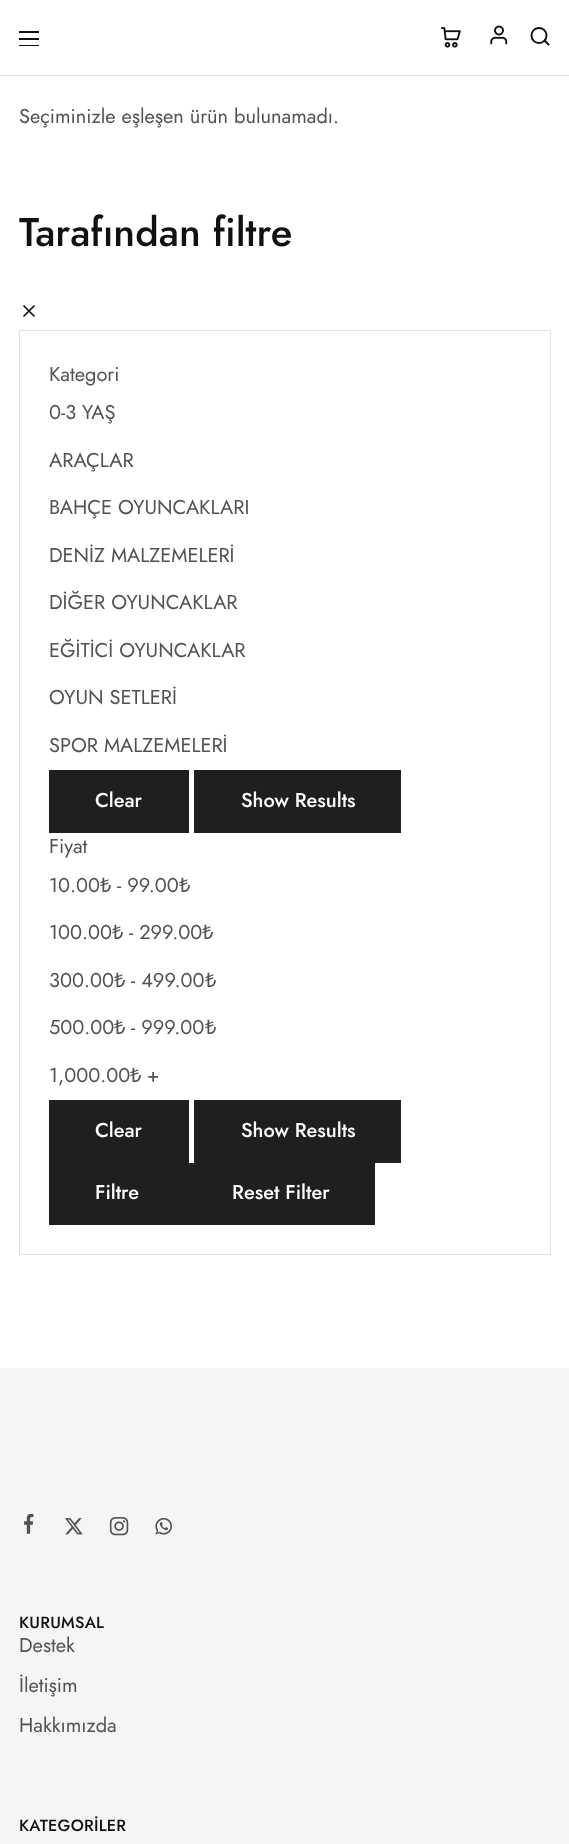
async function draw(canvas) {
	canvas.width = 569;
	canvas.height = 1844;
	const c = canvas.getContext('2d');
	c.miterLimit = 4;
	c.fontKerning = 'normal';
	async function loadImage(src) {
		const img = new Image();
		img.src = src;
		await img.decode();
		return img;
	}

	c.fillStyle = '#fff';
	c.fillRect(0, 0, 569, 1844);
	for (const [x, y, w, h, color] of [
		[0, 75, 569, 1, '#e2e2e2'],
		[19, 31, 20, 2, '#111'],
		[19, 38, 20, 2, '#111'],
		[19, 45, 20, 1, '#111'],
	]) {
		c.fillStyle = color;
		c.fillRect(x, y, w, h);
	}
	c.drawImage(await loadImage('img1.png'), 441, 27, 20, 21);
	c.drawImage(await loadImage('img2.png'), 490, 25, 18, 20);
	c.beginPath();
	c.arc(539, 35.5, 7.5, 0, 2 * Math.PI);
	c.strokeStyle = '#111';
	c.lineWidth = 1.9;
	c.stroke();
	c.beginPath();
	c.moveTo(548.5, 44.5);
	c.lineTo(544.5, 40.5);
	c.lineCap = 'round';
	c.lineJoin = 'round';
	c.stroke();
	c.font = '20px Jost';
	c.fillStyle = '#525252';
	c.fillText('Seçiminizle eşleşen ürün bulunamadı.', 19, 123);
	c.font = '500 40px Jost';
	c.fillStyle = '#111';
	c.fillText('Tarafından filtre', 19, 246);
	c.beginPath();
	c.moveTo(34, 306);
	c.lineTo(24, 316);
	c.moveTo(24, 306);
	c.lineTo(34, 316);
	c.lineWidth = 1.7;
	c.stroke();
	c.strokeStyle = '#e2e2e2';
	c.lineWidth = 1;
	c.lineJoin = 'miter';
	c.strokeRect(19.5, 330.5, 531, 924);
	c.font = '20px Jost';
	c.fillStyle = '#525252';
	for (const [text, x, y] of [
		['Kategori', 49, 381],
		['0-3 YAŞ', 49, 419],
		['ARAÇLAR', 49, 467],
		['BAHÇE OYUNCAKLARI', 49, 514],
		['DENİZ MALZEMELERİ', 49, 562],
		['DİĞER OYUNCAKLAR', 49, 609],
		['EĞİTİCİ OYUNCAKLAR', 49, 657],
		['OYUN SETLERİ', 49, 704],
		['SPOR MALZEMELERİ', 49, 752],
	]) {
		c.fillText(text, x, y);
	}
	c.fillStyle = '#1f1f1f';
	c.fillRect(49, 770, 140, 63);
	c.font = '500 20px Jost';
	c.fillStyle = '#fff';
	c.fillText('Clear', 95, 807);
	c.fillStyle = '#1f1f1f';
	c.fillRect(194, 770, 207, 63);
	c.fillStyle = '#fff';
	c.fillText('Show Results', 241, 807);
	c.font = '20px Jost';
	c.fillStyle = '#525252';
	c.fillText('Fiyat', 49, 853);
	c.fillText('10.00', 49, 892);
	c.font = '20px Noto Sans';
	c.fillText('₺', 100, 892);
	c.font = '20px Jost';
	c.fillText('- 99.00', 117, 892);
	c.font = '20px Noto Sans';
	c.fillText('₺', 179, 892);
	c.font = '20px Jost';
	c.fillText('100.00', 49, 939);
	c.font = '20px Noto Sans';
	c.fillText('₺', 112, 939);
	c.font = '20px Jost';
	c.fillText('- 299.00', 129, 939);
	c.font = '20px Noto Sans';
	c.fillText('₺', 202, 939);
	c.font = '20px Jost';
	c.fillText('300.00', 49, 987);
	c.font = '20px Noto Sans';
	c.fillText('₺', 114, 987);
	c.font = '20px Jost';
	c.fillText('- 499.00', 131, 987);
	c.font = '20px Noto Sans';
	c.fillText('₺', 205, 987);
	c.font = '20px Jost';
	c.fillText('500.00', 49, 1034);
	c.font = '20px Noto Sans';
	c.fillText('₺', 114, 1034);
	c.font = '20px Jost';
	c.fillText('- 999.00', 131, 1034);
	c.font = '20px Noto Sans';
	c.fillText('₺', 205, 1034);
	c.font = '20px Jost';
	c.fillText('1,000.00', 49, 1082);
	c.font = '20px Noto Sans';
	c.fillText('₺', 130, 1082);
	c.font = '20px Jost';
	c.fillText('+', 147, 1082);
	c.fillStyle = '#1f1f1f';
	c.fillRect(49, 1100, 140, 63);
	c.font = '500 20px Jost';
	c.fillStyle = '#fff';
	c.fillText('Clear', 95, 1137);
	c.fillStyle = '#1f1f1f';
	c.fillRect(194, 1100, 207, 63);
	c.fillStyle = '#fff';
	c.fillText('Show Results', 241, 1137);
	c.fillStyle = '#1f1f1f';
	c.fillRect(49, 1163, 326, 62);
	c.fillStyle = '#fff';
	c.fillText('Filtre', 95, 1199);
	c.fillText('Reset Filter', 232, 1199);
	c.fillStyle = '#f5f5f5';
	c.fillRect(0, 1368, 569, 476);
	c.drawImage(await loadImage('img3.png'), 24, 1514, 10, 20);
	c.drawImage(await loadImage('img4.png'), 64, 1518, 19, 17);
	c.drawImage(await loadImage('img5.png'), 109, 1517, 20, 19);
	c.drawImage(await loadImage('img6.png'), 155, 1517, 18, 18);
	c.letterSpacing = '0.25px';
	c.font = '500 16.25px Jost';
	c.fillStyle = '#111';
	c.fillText('KURUMSAL', 19, 1628);
	c.letterSpacing = '0px';
	c.font = '20px Jost';
	c.fillStyle = '#525252';
	for (const [text, x, y] of [
		['Destek', 19, 1652],
		['İletişim', 19, 1692],
		['Hakkımızda', 19, 1732],
	]) {
		c.fillText(text, x, y);
	}
	c.letterSpacing = '0.25px';
	c.font = '500 16.25px Jost';
	c.fillStyle = '#111';
	c.fillText('KATEGORİLER', 19, 1831);
}

draw(document.querySelector('canvas'));
